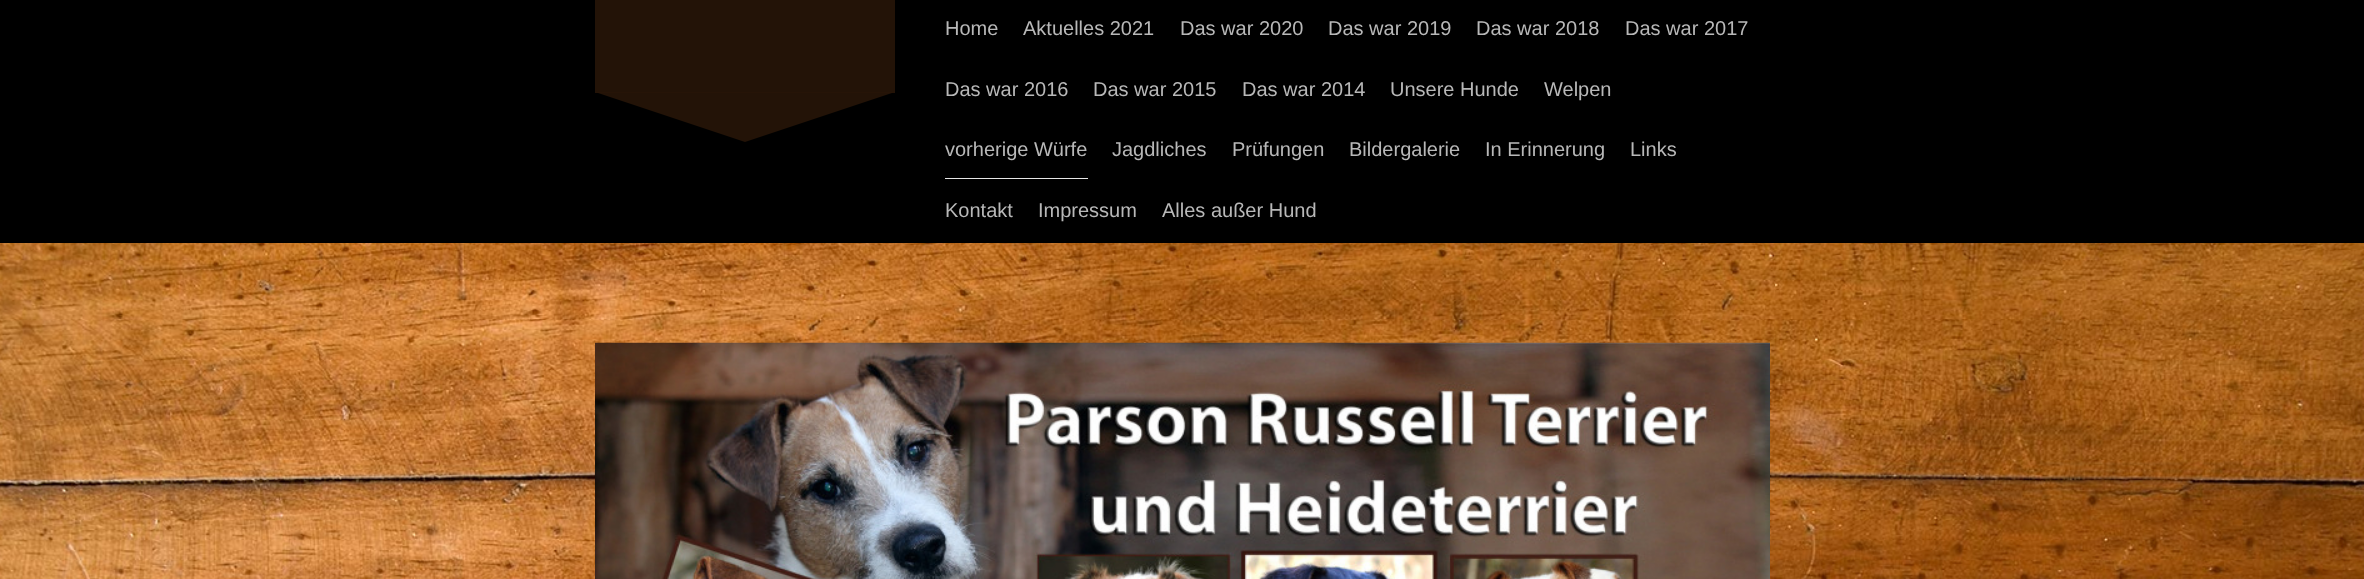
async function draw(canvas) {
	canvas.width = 2364;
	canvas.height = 579;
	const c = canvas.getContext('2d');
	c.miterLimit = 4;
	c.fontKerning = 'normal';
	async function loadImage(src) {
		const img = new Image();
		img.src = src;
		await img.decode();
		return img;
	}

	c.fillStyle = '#fff';
	c.fillRect(0, 0, 2364, 579);
	c.drawImage(await loadImage('img1.png'), 0, 243, 2364, 336);
	c.fillStyle = '#000';
	c.fillRect(0, 0, 2364, 243);
	c.fillStyle = '#231307';
	c.fillRect(595, 0, 300, 93);
	c.fillStyle = '#271508e6';
	c.beginPath();
	c.moveTo(595, 92);
	c.lineTo(895, 92);
	c.lineTo(745, 142);
	c.closePath();
	c.fill();
	c.font = '20px Liberation Sans';
	c.fillStyle = '#b8b8b8';
	for (const [text, x, y] of [
		['Home', 945, 35],
		['Aktuelles 2021', 1023, 35],
		['Das war 2020', 1180, 35],
		['Das war 2019', 1328, 35],
		['Das war 2018', 1476, 35],
		['Das war 2017', 1625, 35],
		['Das war 2016', 945, 96],
		['Das war 2015', 1093, 96],
		['Das war 2014', 1242, 96],
		['Unsere Hunde', 1390, 96],
		['Welpen', 1544, 96],
	]) {
		c.fillText(text, x, y);
	}
	c.fillStyle = '#e6e6e6';
	c.fillRect(945, 178, 143, 1);
	c.fillStyle = '#b8b8b8';
	for (const [text, x, y] of [
		['vorherige Würfe', 945, 156],
		['Jagdliches', 1112, 156],
		['Prüfungen', 1232, 156],
		['Bildergalerie', 1349, 156],
		['In Erinnerung', 1485, 156],
		['Links', 1630, 156],
		['Kontakt', 945, 217],
		['Impressum', 1038, 217],
		['Alles außer Hund', 1162, 217],
	]) {
		c.fillText(text, x, y);
	}
	c.drawImage(await loadImage('img2.png'), 595, 342, 1175, 237);
}

draw(document.querySelector('canvas'));
